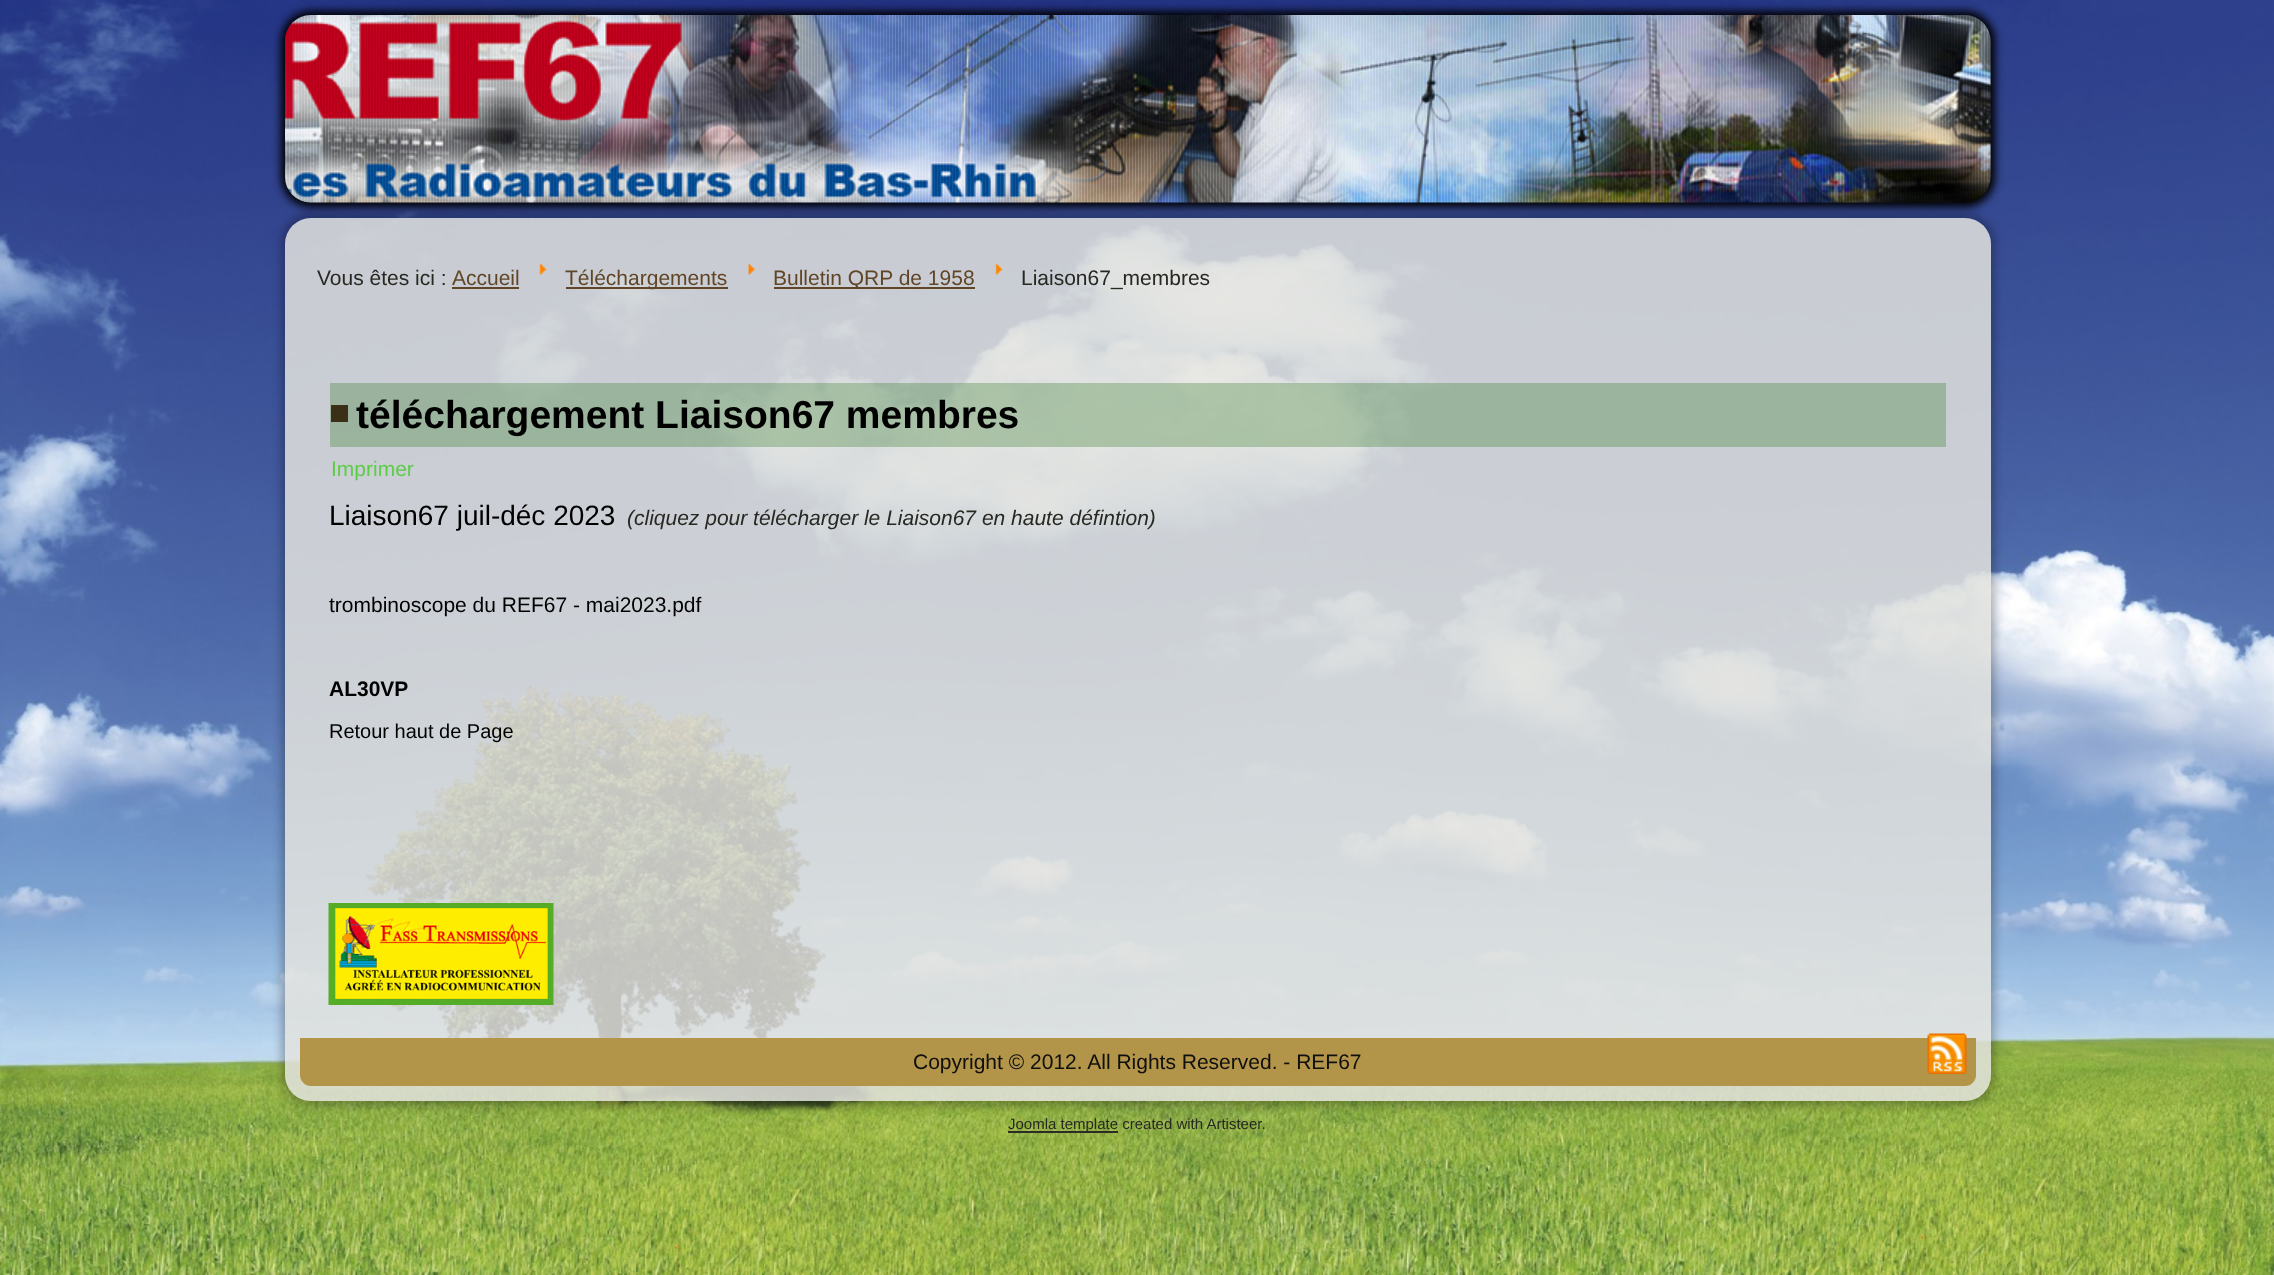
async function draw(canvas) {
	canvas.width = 2274;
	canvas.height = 1275;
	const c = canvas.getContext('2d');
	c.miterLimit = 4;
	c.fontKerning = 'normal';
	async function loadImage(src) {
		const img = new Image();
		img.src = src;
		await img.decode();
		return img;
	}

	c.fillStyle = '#fff';
	c.fillRect(0, 0, 2274, 1275);
	c.drawImage(await loadImage('img1.png'), 0, 0, 2274, 1275);
	c.fillStyle = '#000';
	c.filter = 'blur(4px)';
	c.beginPath();
	c.roundRect(281, 11, 1714, 196, 30);
	c.fill();
	c.filter = 'none';
	c.drawImage(await loadImage('img2.png'), 284, 15, 1707, 188);
	c.save();
	c.beginPath();
	c.moveTo(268, 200);
	c.lineTo(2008, 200);
	c.lineTo(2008, 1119);
	c.lineTo(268, 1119);
	c.closePath();
	c.moveTo(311, 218);
	c.lineTo(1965, 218);
	c.bezierCurveTo(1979.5, 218, 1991, 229.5, 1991, 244);
	c.lineTo(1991, 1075);
	c.bezierCurveTo(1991, 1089.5, 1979.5, 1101, 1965, 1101);
	c.lineTo(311, 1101);
	c.bezierCurveTo(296.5, 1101, 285, 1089.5, 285, 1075);
	c.lineTo(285, 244);
	c.bezierCurveTo(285, 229.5, 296.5, 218, 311, 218);
	c.closePath();
	c.clip('evenodd');
	c.fillStyle = '#00000040';
	c.filter = 'blur(4px)';
	c.beginPath();
	c.roundRect(281, 213, 1714, 893, 30);
	c.fill();
	c.filter = 'none';
	c.restore();
	c.fillStyle = '#e3e3ded9';
	c.beginPath();
	c.roundRect(285, 218, 1706, 883, 26);
	c.fill();
	c.font = '21px Liberation Sans';
	c.fillStyle = '#282822';
	c.fillText('Vous êtes ici :', 317, 285);
	c.fillStyle = '#604627';
	c.fillText('Accueil', 452, 285);
	c.fillRect(452, 287, 67, 2);
	c.drawImage(await loadImage('img3.png'), 539, 263, 8, 12);
	c.fillRect(566, 287, 162, 2);
	c.fillText('Téléchargements', 565, 285);
	c.drawImage(await loadImage('img4.png'), 748, 263, 7, 12);
	c.fillRect(774, 287, 201, 2);
	c.fillText('Bulletin QRP de 1958', 773, 285);
	c.drawImage(await loadImage('img5.png'), 995, 263, 8, 12);
	c.fillStyle = '#282822';
	c.fillText('Liaison67_membres', 1021, 285);
	c.fillStyle = '#2e78214d';
	c.fillRect(330, 383, 1616, 64);
	c.fillStyle = '#3a3018';
	c.fillRect(331, 405, 17, 17);
	c.font = 'bold 39px Liberation Sans';
	c.fillStyle = '#000';
	c.fillText('téléchargement Liaison67 membres', 356, 428);
	c.font = '21px Liberation Sans';
	c.fillStyle = '#5bcd47';
	c.fillText('Imprimer', 331, 476);
	c.font = '28px Liberation Sans';
	c.fillStyle = '#000';
	c.fillText('Liaison67 juil-déc 2023', 329, 525);
	c.font = 'italic 21px Liberation Sans';
	c.fillStyle = '#282822';
	c.fillText('(cliquez pour télécharger le Liaison67 en haute défintion)', 627, 525);
	c.font = '21px Liberation Sans';
	c.fillStyle = '#000';
	c.fillText('trombinoscope du REF67 - mai2023.pdf', 329, 612);
	c.font = 'bold 21px Liberation Sans';
	c.fillText('AL30VP', 329, 696);
	c.font = '20px Liberation Sans';
	c.fillText('Retour haut de Page', 329, 738);
	c.drawImage(await loadImage('img6.png'), 328, 903, 226, 102);
	c.fillStyle = '#b3954a';
	c.beginPath();
	c.roundRect(300, 1038, 1676, 48, [0, 0, 11, 11]);
	c.fill();
	c.font = '21px Liberation Sans';
	c.fillStyle = '#0f0f0d';
	c.fillText('Copyright © 2012. All Rights Reserved. - REF67', 913, 1069);
	c.drawImage(await loadImage('img7.png'), 1927, 1033, 40, 41);
	c.fillStyle = '#2c2c26';
	c.fillRect(1008, 1131, 110, 2);
	c.font = '15px Liberation Sans';
	c.fillStyle = '#282822';
	c.fillText('Joomla template created with Artisteer.', 1008, 1129);
}

draw(document.querySelector('canvas'));
